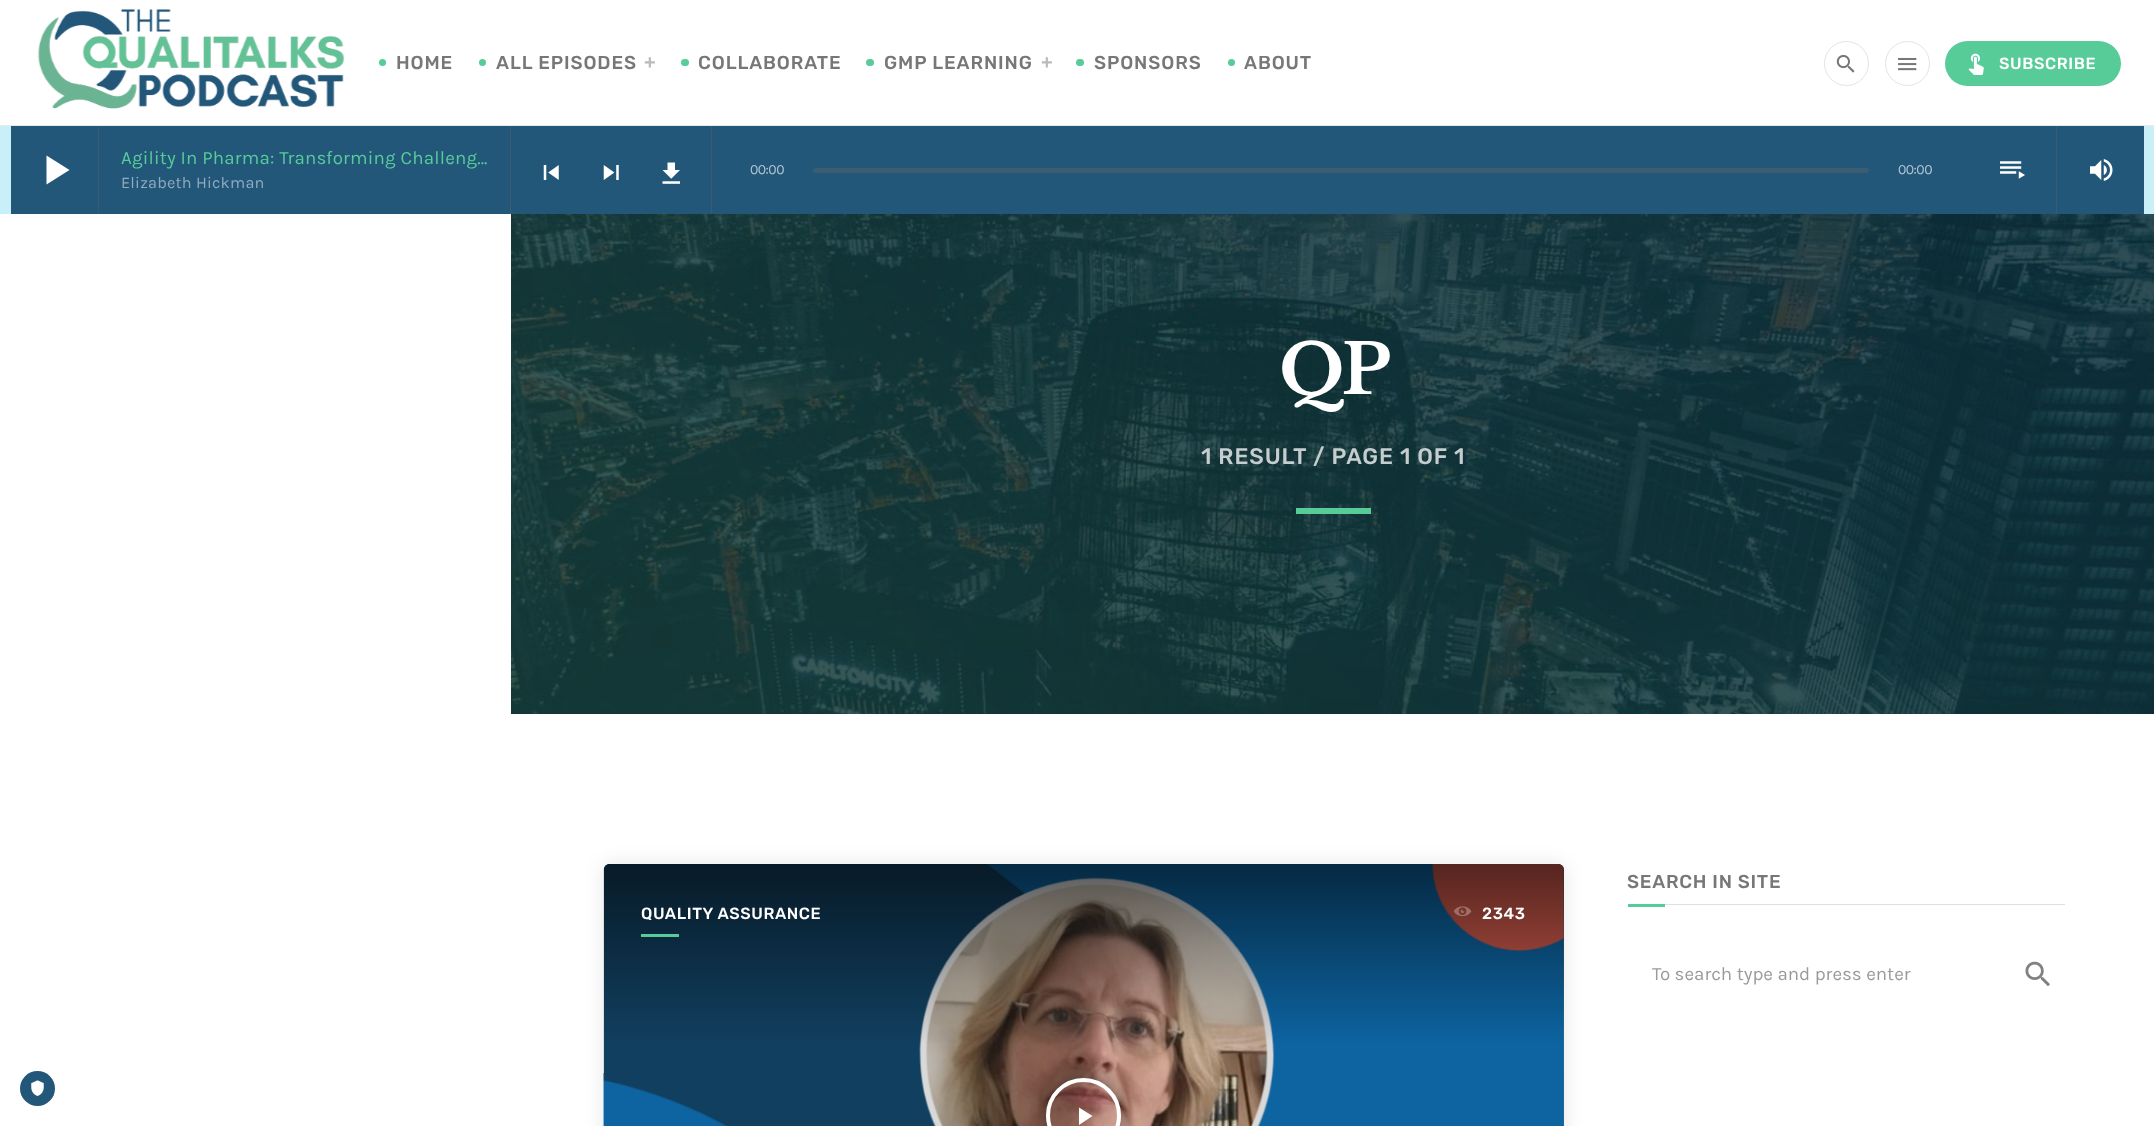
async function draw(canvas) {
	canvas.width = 2154;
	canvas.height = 1126;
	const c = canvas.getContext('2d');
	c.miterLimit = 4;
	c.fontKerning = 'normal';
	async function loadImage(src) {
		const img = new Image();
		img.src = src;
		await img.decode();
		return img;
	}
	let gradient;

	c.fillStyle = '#fff';
	c.fillRect(0, 0, 2154, 1126);
	c.fillStyle = '#e8e8e8';
	c.fillRect(0, 125, 2154, 1);
	c.drawImage(await loadImage('img1.png'), 37, 9, 308, 100);
	c.fillStyle = '#57cc99';
	c.beginPath();
	c.arc(382.5, 62.5, 3.5, 0, 2 * Math.PI);
	c.fill();
	c.letterSpacing = '0.9px';
	c.font = '500 18.75px Rubik';
	c.fillStyle = '#777';
	c.fillText('HOME', 396, 69);
	c.fillStyle = '#57cc99';
	c.beginPath();
	c.arc(482.5, 62.5, 3.5, 0, 2 * Math.PI);
	c.fill();
	c.fillStyle = '#777';
	c.fillText('ALL EPISODES', 496, 69);
	c.font = 'bold 20px Liberation Sans';
	c.fillStyle = '#bbb';
	c.fillText('+', 644, 69);
	c.fillStyle = '#57cc99';
	c.beginPath();
	c.roundRect(681, 59, 8, 7, 3.5);
	c.fill();
	c.font = '500 18.75px Rubik';
	c.fillStyle = '#777';
	c.fillText('COLLABORATE', 698, 69);
	c.fillStyle = '#57cc99';
	c.beginPath();
	c.roundRect(866, 59, 8, 7, 3.5);
	c.fill();
	c.fillStyle = '#777';
	c.fillText('GMP LEARNING', 884, 69);
	c.font = 'bold 20px Liberation Sans';
	c.fillStyle = '#bbb';
	c.fillText('+', 1041, 69);
	c.fillStyle = '#57cc99';
	c.beginPath();
	c.roundRect(1076, 59, 8, 7, 3.5);
	c.fill();
	c.font = '500 18.75px Rubik';
	c.fillStyle = '#777';
	c.fillText('SPONSORS', 1094, 69);
	c.fillStyle = '#57cc99';
	c.beginPath();
	c.arc(1231.5, 62.5, 3.5, 0, 2 * Math.PI);
	c.fill();
	c.fillStyle = '#777';
	c.fillText('ABOUT', 1244, 69);
	c.beginPath();
	c.arc(1846.5, 63.5, 22, 0, 2 * Math.PI);
	c.strokeStyle = '#e4e4e4';
	c.stroke();
	c.drawImage(await loadImage('img2.png'), 1836, 54, 19, 19);
	c.beginPath();
	c.arc(1907.5, 63.5, 22, 0, 2 * Math.PI);
	c.stroke();
	c.drawImage(await loadImage('img3.png'), 1898, 57, 19, 14);
	c.fillStyle = '#57cc99';
	c.beginPath();
	c.roundRect(1945, 41, 176, 45, 22.5);
	c.fill();
	c.drawImage(await loadImage('img4.png'), 1968, 53, 16, 22);
	c.letterSpacing = '0.6px';
	c.font = '500 16.25px Rubik';
	c.fillStyle = '#fff';
	c.fillText('SUBSCRIBE', 1999, 69);
	for (const [x, y, w, h, color] of [
		[0, 126, 2154, 88, '#c9f0f9'],
		[11, 126, 2133, 88, '#22577a'],
		[510, 126, 1, 88, '#365b73'],
		[98, 126, 1, 88, '#365b73'],
	]) {
		c.fillStyle = color;
		c.fillRect(x, y, w, h);
	}
	c.fillStyle = '#fff';
	c.beginPath();
	c.moveTo(46.5, 155.5);
	c.lineTo(69.5, 170);
	c.lineTo(46.5, 184.5);
	c.closePath();
	c.fill();
	c.letterSpacing = '0.2px';
	c.font = '18.75px Karla';
	c.fillStyle = '#57cc99';
	c.fillText('Agility In Pharma: Transforming Challeng…', 121, 164);
	c.font = '16.25px Karla';
	c.fillStyle = '#91abbd';
	c.fillText('Elizabeth Hickman', 121, 188);
	c.fillStyle = '#365b73';
	c.fillRect(711, 126, 1, 88);
	c.drawImage(await loadImage('img5.png'), 543, 165, 16, 15);
	c.drawImage(await loadImage('img6.png'), 603, 165, 16, 15);
	c.drawImage(await loadImage('img7.png'), 662, 162, 18, 22);
	c.letterSpacing = '-0.5px';
	c.font = '14px Karla';
	c.fillStyle = '#b2c4d0';
	c.fillText('00:00', 750, 174);
	c.fillStyle = '#3c5c71';
	c.beginPath();
	c.roundRect(813, 168, 1056, 5, 2.5);
	c.fill();
	c.fillStyle = '#b2c4d0';
	c.fillText('00:00', 1898, 174);
	c.drawImage(await loadImage('img8.png'), 2000, 161, 25, 18);
	c.fillStyle = '#365b73';
	c.fillRect(2056, 126, 1, 88);
	c.drawImage(await loadImage('img9.png'), 2090, 159, 23, 22);
	c.drawImage(await loadImage('img10.png'), 511, 214, 1643, 500);
	c.letterSpacing = '-3px';
	c.font = 'bold 69px Libre Baskerville';
	c.fillStyle = '#fff';
	c.fillText('QP', 1279, 394);
	c.letterSpacing = '0.9px';
	c.font = '500 22.5px Rubik';
	c.fillStyle = '#c5cdce';
	c.fillText('1 RESULT / PAGE 1 OF 1', 1201, 464);
	c.fillStyle = '#57cc99';
	c.fillRect(1296, 508, 75, 6);
	c.fillStyle = '#0000001a';
	c.filter = 'blur(9.5px)';
	c.beginPath();
	c.roundRect(604, 864, 960, 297, 6);
	c.fill();
	c.filter = 'none';
	c.fillStyle = '#59819b';
	c.beginPath();
	c.moveTo(610, 864);
	c.lineTo(1558, 864);
	c.bezierCurveTo(1561.5, 864, 1564, 866.5, 1564, 870);
	c.lineTo(1564, 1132);
	c.lineTo(604, 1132);
	c.lineTo(604, 870);
	c.bezierCurveTo(604, 866.5, 606.5, 864, 610, 864);
	c.closePath();
	c.fill();
	c.drawImage(await loadImage('img11.png'), 603, 864, 961, 262);
	gradient = c.createLinearGradient(1084, 864, 1084, 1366);
	gradient.addColorStop(0, '#000000a6');
	gradient.addColorStop(0.36, '#00000026');
	gradient.addColorStop(0.81, '#00000026');
	gradient.addColorStop(1, '#000000a6');
	c.fillStyle = gradient;
	c.beginPath();
	c.moveTo(610, 864);
	c.lineTo(1558, 864);
	c.bezierCurveTo(1561.5, 864, 1564, 866.5, 1564, 870);
	c.lineTo(1564, 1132);
	c.lineTo(604, 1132);
	c.lineTo(604, 870);
	c.bezierCurveTo(604, 866.5, 606.5, 864, 610, 864);
	c.closePath();
	c.fill();
	c.letterSpacing = '0.6px';
	c.font = '500 16.25px Rubik';
	c.fillStyle = '#fff';
	c.fillText('QUALITY ASSURANCE', 641, 919);
	c.fillStyle = '#57cc99';
	c.fillRect(641, 934, 38, 3);
	c.drawImage(await loadImage('img12.png'), 1453, 906, 19, 11);
	c.fillStyle = '#fff';
	c.fillText('2343', 1482, 919);
	c.save();
	c.beginPath();
	c.moveTo(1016, 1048);
	c.lineTo(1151, 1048);
	c.lineTo(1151, 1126);
	c.lineTo(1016, 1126);
	c.closePath();
	c.moveTo(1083.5, 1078);
	c.bezierCurveTo(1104, 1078, 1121, 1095, 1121, 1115.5);
	c.bezierCurveTo(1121, 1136, 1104, 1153, 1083.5, 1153);
	c.bezierCurveTo(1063, 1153, 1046, 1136, 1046, 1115.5);
	c.bezierCurveTo(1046, 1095, 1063, 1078, 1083.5, 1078);
	c.closePath();
	c.clip('evenodd');
	c.fillStyle = '#00000080';
	c.filter = 'blur(9.5px)';
	c.beginPath();
	c.roundRect(1046, 1078, 75, 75, 37.5);
	c.fill();
	c.filter = 'none';
	c.restore();
	c.beginPath();
	c.arc(1083.5, 1115.5, 35.5, 0, 2 * Math.PI);
	c.strokeStyle = '#fff';
	c.lineWidth = 4;
	c.stroke();
	c.beginPath();
	c.moveTo(1079, 1107.5);
	c.lineTo(1092.5, 1116);
	c.lineTo(1079, 1125);
	c.closePath();
	c.fill();
	c.fillStyle = '#e0e0e0';
	c.fillRect(1665, 904, 400, 1);
	c.letterSpacing = '0.75px';
	c.font = '500 18.75px Rubik';
	c.fillStyle = '#777';
	c.fillText('SEARCH IN SITE', 1627, 888);
	c.fillStyle = '#57cc99';
	c.fillRect(1628, 904, 37, 3);
	c.letterSpacing = '0px';
	c.font = '18.75px Karla';
	c.fillStyle = '#9a9a9a';
	c.fillText('To search type and press enter', 1652, 980);
	c.drawImage(await loadImage('img13.png'), 2025, 961, 25, 26);
	c.fillStyle = '#22577a';
	c.beginPath();
	c.arc(37.5, 1088.5, 17.5, 0, 2 * Math.PI);
	c.fill();
	c.drawImage(await loadImage('img14.png'), 31, 1080, 13, 16);
}

draw(document.querySelector('canvas'));
